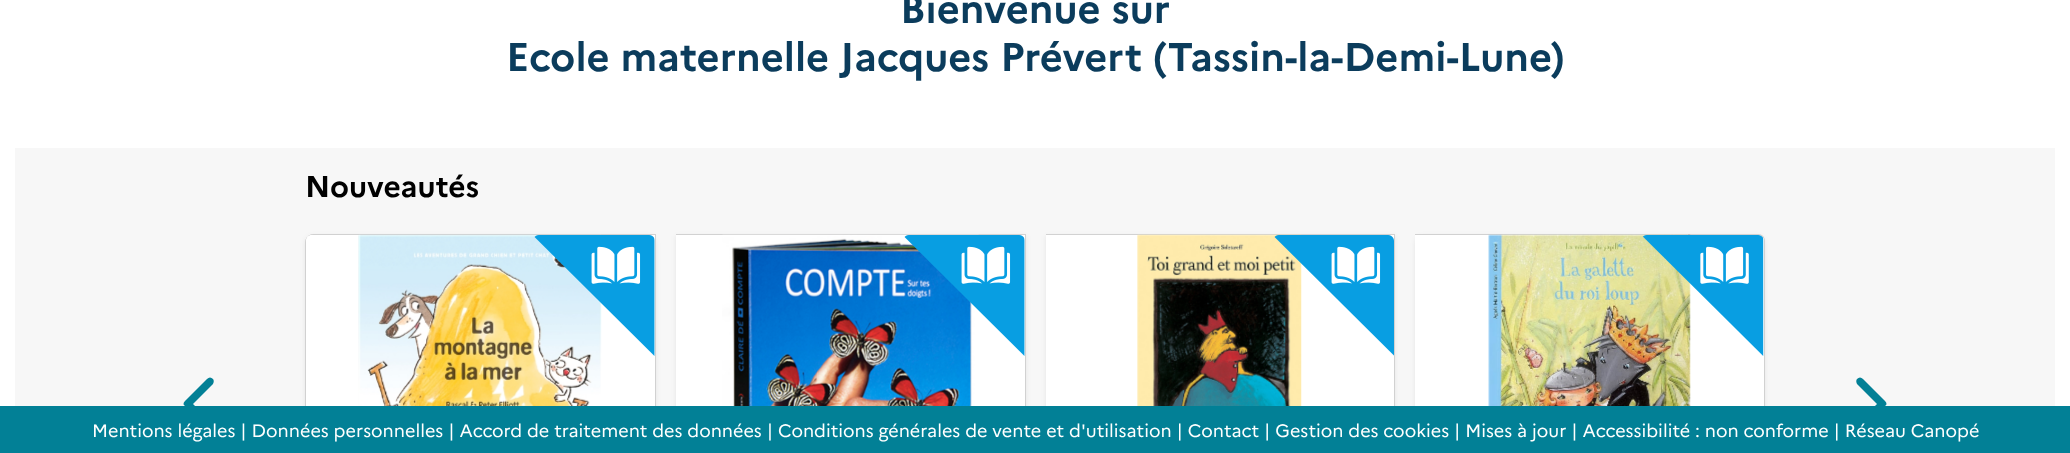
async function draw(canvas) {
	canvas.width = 2070;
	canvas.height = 453;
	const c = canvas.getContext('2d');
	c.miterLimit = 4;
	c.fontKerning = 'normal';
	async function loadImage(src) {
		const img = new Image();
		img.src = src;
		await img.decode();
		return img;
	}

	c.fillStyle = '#fff';
	c.fillRect(0, 0, 2070, 453);
	c.font = 'bold 40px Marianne';
	c.fillStyle = '#0b3c5c';
	c.fillText('Bienvenue sur', 900, 23);
	c.fillText('Ecole maternelle Jacques Prévert (Tassin-la-Demi-Lune)', 506, 71);
	c.fillStyle = '#f7f7f7';
	c.fillRect(15, 148, 2040, 258);
	c.font = 'bold 30px Marianne';
	c.fillStyle = '#000';
	c.fillText('Nouveautés', 305, 197);
	c.fillStyle = '#00000012';
	c.filter = 'blur(2.5px)';
	c.beginPath();
	c.roundRect(305, 236, 351, 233, 8);
	c.fill();
	c.filter = 'none';
	c.fillStyle = '#fff';
	c.beginPath();
	c.moveTo(313, 234);
	c.lineTo(656, 234);
	c.lineTo(656, 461);
	c.lineTo(313, 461);
	c.bezierCurveTo(308.5, 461, 305, 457.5, 305, 453);
	c.lineTo(305, 242);
	c.bezierCurveTo(305, 237.5, 308.5, 234, 313, 234);
	c.closePath();
	c.fill();
	c.beginPath();
	c.moveTo(313, 234.5);
	c.lineTo(655.5, 234.5);
	c.lineTo(655.5, 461.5);
	c.lineTo(313, 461.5);
	c.bezierCurveTo(309, 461.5, 305.5, 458, 305.5, 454);
	c.lineTo(305.5, 242);
	c.bezierCurveTo(305.5, 238, 309, 234.5, 313, 234.5);
	c.closePath();
	c.strokeStyle = '#0000002e';
	c.stroke();
	c.beginPath();
	c.moveTo(312, 235);
	c.lineTo(655, 235);
	c.lineTo(655, 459);
	c.lineTo(306, 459);
	c.lineTo(306, 241);
	c.bezierCurveTo(306, 237.5, 308.5, 235, 312, 235);
	c.closePath();
	c.fill();
	c.drawImage(await loadImage('img1.png'), 358, 234, 244, 172);
	c.drawImage(await loadImage('img2.png'), 534, 235, 121, 121);
	c.fillStyle = '#00000012';
	c.filter = 'blur(2.5px)';
	c.beginPath();
	c.rect(676, 236, 350, 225);
	c.fill();
	c.filter = 'none';
	c.fillStyle = '#fff';
	c.fillRect(676, 234, 350, 172);
	c.fillStyle = '#d2d2d2';
	c.beginPath();
	c.moveTo(676, 234);
	c.lineTo(1026, 234);
	c.lineTo(1025, 235);
	c.lineTo(676, 235);
	c.closePath();
	c.fill();
	c.fillStyle = '#0000002e';
	c.beginPath();
	c.moveTo(1026, 234);
	c.lineTo(1026, 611);
	c.lineTo(1025, 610);
	c.lineTo(1025, 235);
	c.closePath();
	c.fill();
	c.drawImage(await loadImage('img3.png'), 722, 234, 257, 172);
	c.drawImage(await loadImage('img4.png'), 904, 235, 121, 121);
	c.fillStyle = '#00000012';
	c.filter = 'blur(2.5px)';
	c.beginPath();
	c.rect(1046, 236, 349, 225);
	c.fill();
	c.filter = 'none';
	c.fillStyle = '#fff';
	c.fillRect(1046, 234, 349, 172);
	c.fillStyle = '#d2d2d2';
	c.beginPath();
	c.moveTo(1046, 234);
	c.lineTo(1395, 234);
	c.lineTo(1394, 235);
	c.lineTo(1046, 235);
	c.closePath();
	c.fill();
	c.fillStyle = '#0000002e';
	c.beginPath();
	c.moveTo(1395, 234);
	c.lineTo(1395, 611);
	c.lineTo(1394, 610);
	c.lineTo(1394, 235);
	c.closePath();
	c.fill();
	c.drawImage(await loadImage('img5.png'), 1137, 234, 165, 172);
	c.drawImage(await loadImage('img6.png'), 1274, 235, 120, 121);
	c.fillStyle = '#00000012';
	c.filter = 'blur(2.5px)';
	c.beginPath();
	c.roundRect(1415, 236, 350, 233, 8);
	c.fill();
	c.filter = 'none';
	c.fillStyle = '#fff';
	c.beginPath();
	c.moveTo(1415, 234);
	c.lineTo(1757, 234);
	c.bezierCurveTo(1761.5, 234, 1765, 237.5, 1765, 242);
	c.lineTo(1765, 453);
	c.bezierCurveTo(1765, 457.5, 1761.5, 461, 1757, 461);
	c.lineTo(1415, 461);
	c.closePath();
	c.fill();
	c.fillStyle = '#0000002e';
	c.beginPath();
	c.moveTo(1415, 234);
	c.lineTo(1758, 234);
	c.bezierCurveTo(1762, 234, 1765, 237, 1765, 241);
	c.lineTo(1765, 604);
	c.bezierCurveTo(1765, 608, 1762, 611, 1758, 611);
	c.lineTo(1415, 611);
	c.closePath();
	c.moveTo(1415, 235);
	c.lineTo(1758, 235);
	c.bezierCurveTo(1761, 235, 1764, 238, 1764, 241);
	c.lineTo(1764, 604);
	c.bezierCurveTo(1764, 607, 1761, 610, 1758, 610);
	c.lineTo(1415, 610);
	c.closePath();
	c.fill('evenodd');
	c.fillStyle = '#fff';
	c.beginPath();
	c.moveTo(1415, 235);
	c.lineTo(1758, 235);
	c.bezierCurveTo(1761.5, 235, 1764, 237.5, 1764, 241);
	c.lineTo(1764, 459);
	c.lineTo(1415, 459);
	c.closePath();
	c.fill();
	c.drawImage(await loadImage('img7.png'), 1488, 234, 203, 172);
	c.drawImage(await loadImage('img8.png'), 1642, 235, 122, 121);
	c.fillStyle = '#028096';
	c.beginPath();
	c.moveTo(185, 401);
	c.bezierCurveTo(183, 403, 183, 405, 185, 406);
	c.lineTo(207, 429);
	c.bezierCurveTo(209, 430, 211, 430, 213, 429);
	c.bezierCurveTo(214, 427, 214, 425, 213, 424);
	c.lineTo(193, 404);
	c.lineTo(213, 384);
	c.bezierCurveTo(214, 382, 214, 380, 213, 379);
	c.bezierCurveTo(211, 377, 209, 377, 207, 379);
	c.closePath();
	c.fill();
	c.beginPath();
	c.moveTo(1885, 401);
	c.bezierCurveTo(1887, 403, 1887, 405, 1885, 406);
	c.lineTo(1863, 429);
	c.bezierCurveTo(1861, 430, 1859, 430, 1857, 429);
	c.bezierCurveTo(1856, 427, 1856, 425, 1857, 424);
	c.lineTo(1877, 404);
	c.lineTo(1857, 384);
	c.bezierCurveTo(1856, 382, 1856, 380, 1857, 379);
	c.bezierCurveTo(1859, 377, 1861, 377, 1863, 379);
	c.closePath();
	c.fill();
	c.fillRect(0, 406, 2070, 47);
	c.font = '18px Marianne';
	c.fillStyle = '#fff';
	c.fillText('Mentions légales | Données personnelles | Accord de traitement des données | Conditions générales de vente et d\'utilisation | Contact | Gestion des cookies | Mises à jour | Accessibilité : non conforme | Réseau Canopé', 92, 437);
}

draw(document.querySelector('canvas'));
